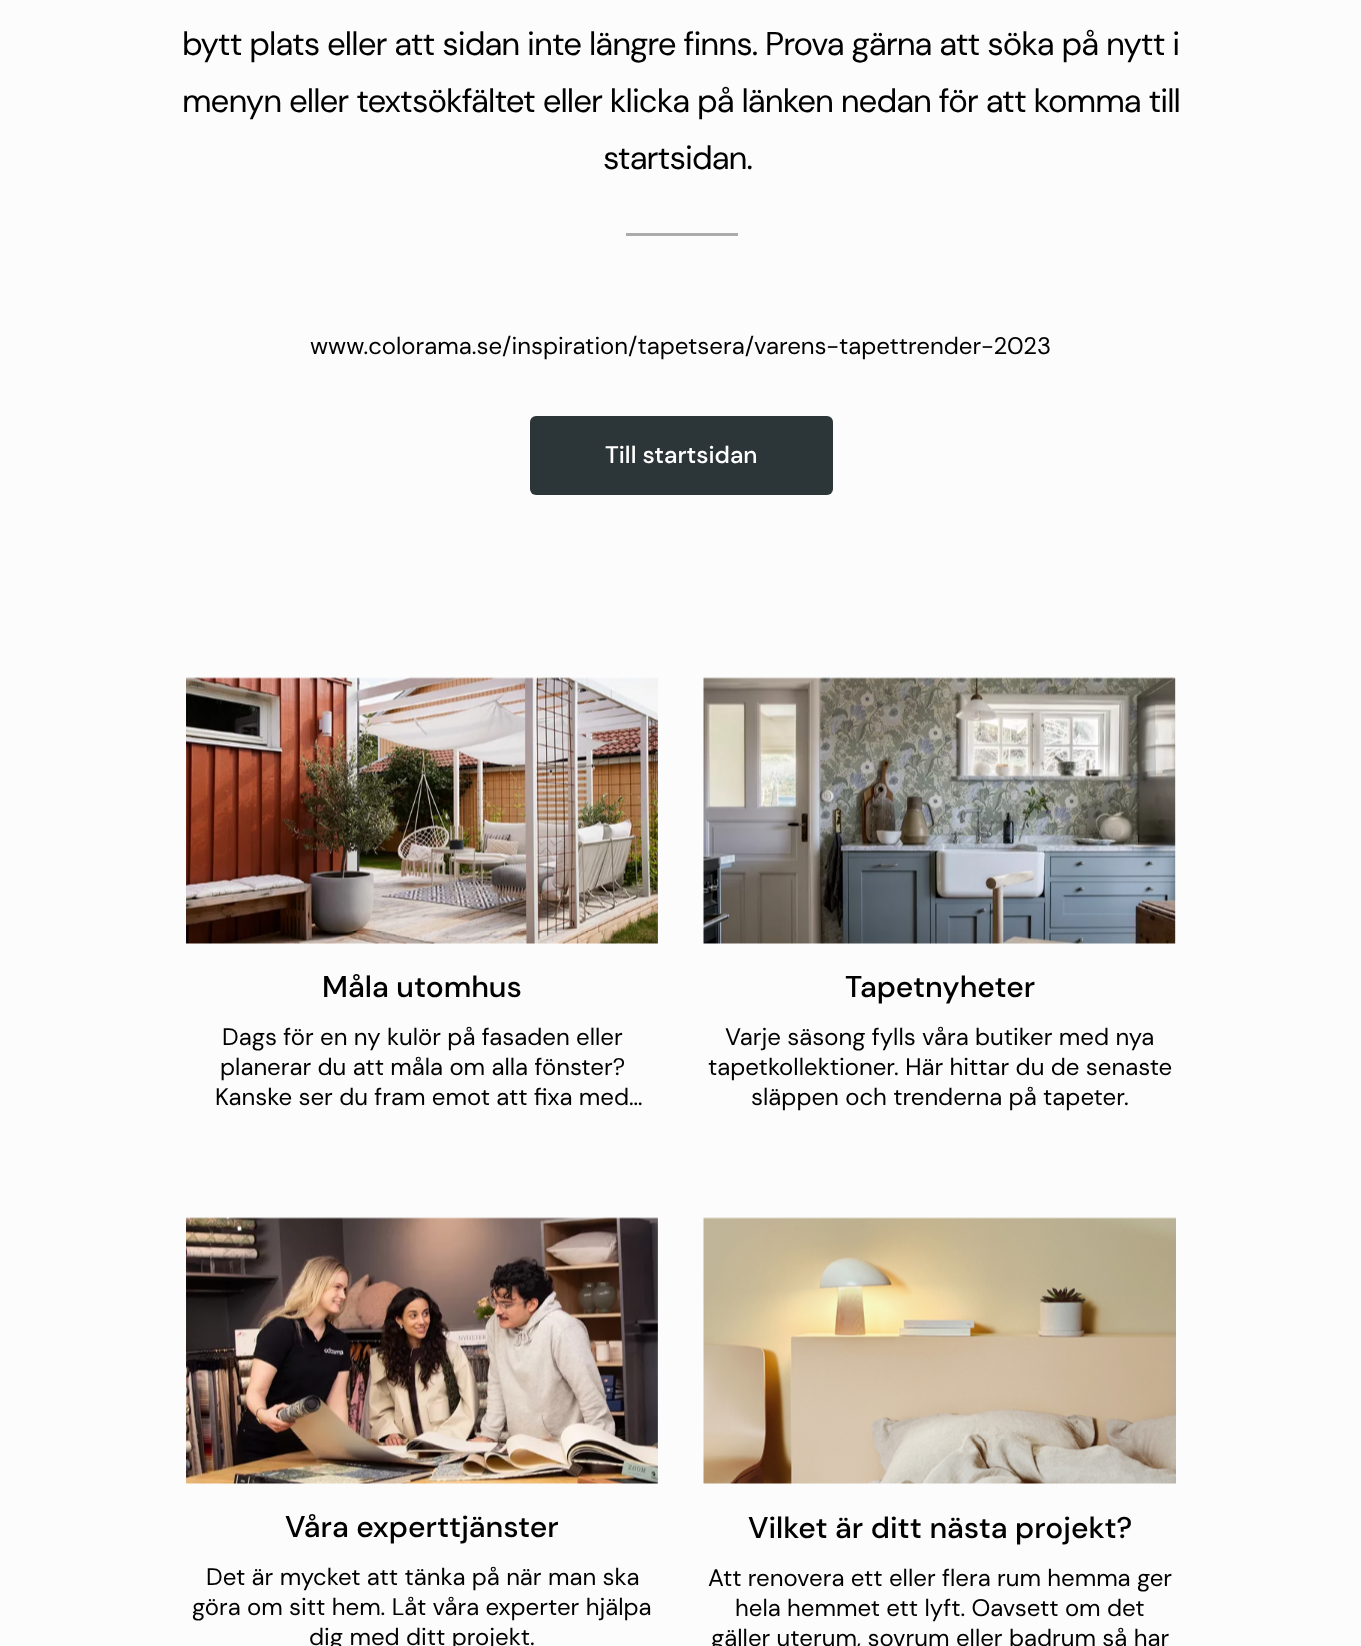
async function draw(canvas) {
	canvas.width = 1361;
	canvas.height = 1646;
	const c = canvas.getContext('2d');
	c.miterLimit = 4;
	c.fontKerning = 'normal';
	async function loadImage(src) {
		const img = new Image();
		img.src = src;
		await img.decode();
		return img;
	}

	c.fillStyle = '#fcfcfc';
	c.fillRect(0, 0, 1361, 1646);
	c.letterSpacing = '-0.95px';
	c.font = '33px DM Sans';
	c.fillStyle = '#000';
	for (const [text, x, y] of [
		['bytt plats eller att sidan inte längre finns. Prova gärna att söka på nytt i', 182, 55],
		['menyn eller textsökfältet eller klicka på länken nedan för att komma till', 182, 112],
		['startsidan.', 603, 169],
	]) {
		c.fillText(text, x, y);
	}
	c.fillStyle = '#acabab';
	c.fillRect(626, 233, 112, 3);
	c.letterSpacing = '0px';
	c.font = '24px DM Sans';
	c.fillStyle = '#000';
	c.fillText('www.colorama.se/inspiration/tapetsera/varens-tapettrender-2023', 310, 354);
	c.fillStyle = '#2c3537';
	c.beginPath();
	c.roundRect(530, 416, 228, 79, [6, 0, 0, 6]);
	c.fill();
	c.font = '500 24px DM Sans';
	c.fillStyle = '#fff';
	c.fillText('Till startsidan', 605, 463);
	c.fillStyle = '#2c3537';
	c.beginPath();
	c.roundRect(758, 416, 75, 79, [0, 6, 6, 0]);
	c.fill();
	c.drawImage(await loadImage('img1.png'), 186, 677, 472, 267);
	c.font = '500 30px DM Sans';
	c.fillStyle = '#000';
	c.fillText('Måla utomhus', 322, 997);
	c.font = '24px DM Sans';
	for (const [text, x, y] of [
		['Dags för en ny kulör på fasaden eller', 222, 1045],
		['planerar du att måla om alla fönster?', 220, 1075],
		['Kanske ser du fram emot att fixa med…', 215, 1105],
	]) {
		c.fillText(text, x, y);
	}
	c.drawImage(await loadImage('img2.png'), 703, 677, 473, 267);
	c.font = '500 30px DM Sans';
	c.fillText('Tapetnyheter', 845, 997);
	c.font = '24px DM Sans';
	for (const [text, x, y] of [
		['Varje säsong fylls våra butiker med nya', 725, 1045],
		['tapetkollektioner. Här hittar du de senaste', 708, 1075],
		['släppen och trenderna på tapeter.', 751, 1105],
	]) {
		c.fillText(text, x, y);
	}
	c.drawImage(await loadImage('img3.png'), 186, 1217, 472, 267);
	c.font = '500 30px DM Sans';
	c.fillText('Våra experttjänster', 285, 1537);
	c.font = '24px DM Sans';
	for (const [text, x, y] of [
		['Det är mycket att tänka på när man ska', 206, 1585],
		['göra om sitt hem. Låt våra experter hjälpa', 192, 1615],
		['dig med ditt projekt.', 309, 1645],
	]) {
		c.fillText(text, x, y);
	}
	c.drawImage(await loadImage('img4.png'), 703, 1217, 473, 267);
	c.font = '500 30px DM Sans';
	c.fillText('Vilket är ditt nästa projekt?', 748, 1538);
	c.font = '24px DM Sans';
	for (const [text, x, y] of [
		['Att renovera ett eller flera rum hemma ger', 708, 1586],
		['hela hemmet ett lyft. Oavsett om det', 735, 1616],
		['gäller uterum, sovrum eller badrum så har', 711, 1646],
	]) {
		c.fillText(text, x, y);
	}
}

draw(document.querySelector('canvas'));
